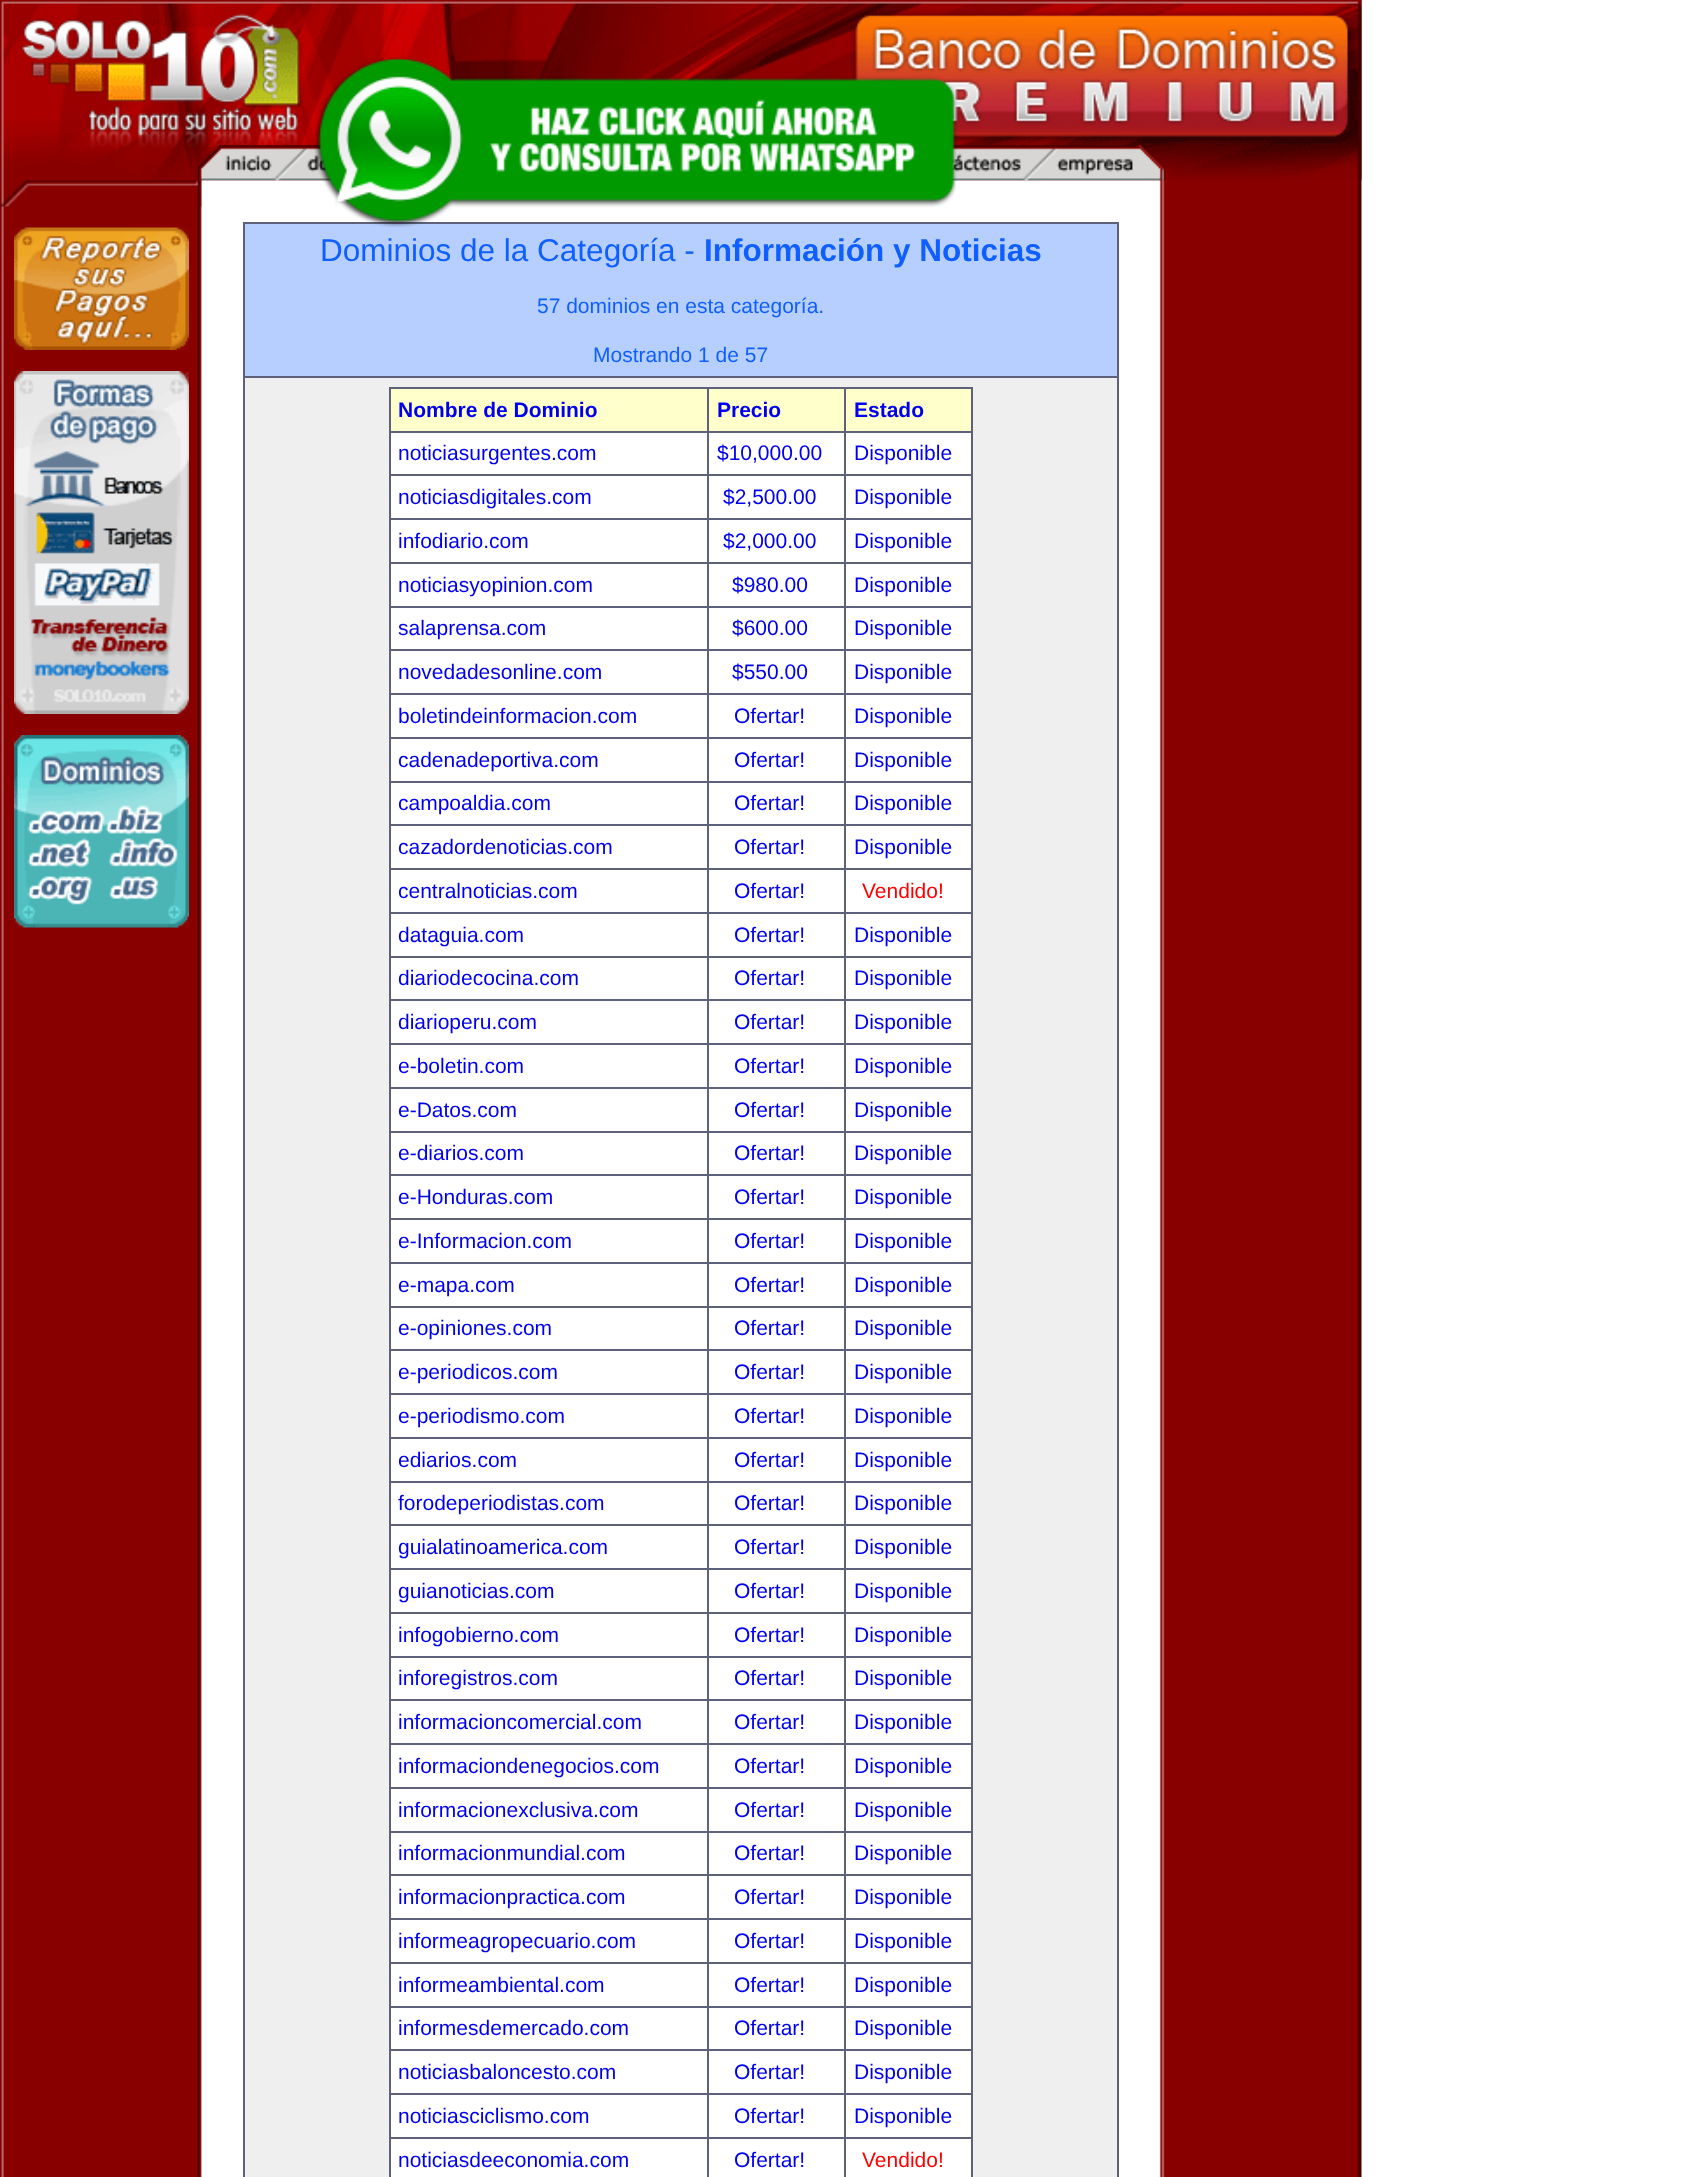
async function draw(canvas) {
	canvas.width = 1698;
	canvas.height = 2177;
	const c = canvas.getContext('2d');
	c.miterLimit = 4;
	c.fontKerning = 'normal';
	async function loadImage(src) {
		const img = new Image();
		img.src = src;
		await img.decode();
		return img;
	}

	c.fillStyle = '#fff';
	c.fillRect(0, 0, 1698, 2177);
	c.drawImage(await loadImage('img2.png'), 0, 0, 1362, 2177);
	c.drawImage(await loadImage('img5.png'), 0, 180, 202, 27);
	c.drawImage(await loadImage('img3.png'), 1, 0, 1361, 181);
	c.drawImage(await loadImage('img4.png'), 197, 145, 967, 36);
	c.fillStyle = '#5d617a';
	c.fillRect(243, 222, 875, 2);
	c.fillStyle = '#b7cfff';
	c.fillRect(245, 224, 872, 152);
	c.drawImage(await loadImage('img1.png'), 313, 56, 644, 172);
	c.drawImage(await loadImage('img6.png'), 14, 227, 175, 123);
	c.drawImage(await loadImage('img7.png'), 14, 371, 175, 343);
	c.drawImage(await loadImage('img8.png'), 14, 735, 175, 193);
	for (const [x, y, w, h, color] of [
		[245, 378, 872, 1799, '#efefef'],
		[1117, 222, 2, 1955, '#5d617a'],
		[243, 222, 2, 1955, '#5d617a'],
	]) {
		c.fillStyle = color;
		c.fillRect(x, y, w, h);
	}
	c.font = '31.5px Liberation Sans';
	c.fillStyle = '#0f5fff';
	c.fillText('Dominios de la Categoría -', 320, 261);
	c.font = 'bold 31.5px Liberation Sans';
	c.fillText('Información y Noticias', 704, 261);
	c.font = '21px Liberation Sans';
	c.fillText('57 dominios en esta categoría.', 537, 313);
	c.fillText('Mostrando 1 de 57', 593, 362);
	for (const [x, y, w, h, color] of [
		[243, 376, 875, 2, '#5d617a'],
		[391, 433, 580, 1744, '#fff'],
		[389, 387, 584, 2, '#5d617a'],
		[971, 387, 2, 1790, '#5d617a'],
		[389, 387, 2, 1790, '#5d617a'],
		[391, 389, 580, 42, '#ffc'],
	]) {
		c.fillStyle = color;
		c.fillRect(x, y, w, h);
	}
	c.font = 'bold 21px Liberation Sans';
	c.fillStyle = '#00e';
	c.fillText('Nombre de Dominio', 398, 417);
	for (const [x, y, w, h, color] of [
		[844, 431, 129, 2, '#5d617a'],
		[844, 474, 129, 2, '#5d617a'],
		[844, 518, 129, 2, '#5d617a'],
		[844, 562, 129, 2, '#5d617a'],
		[844, 606, 129, 2, '#5d617a'],
		[844, 649, 129, 2, '#5d617a'],
		[844, 693, 129, 2, '#5d617a'],
		[844, 737, 129, 2, '#5d617a'],
		[844, 781, 129, 2, '#5d617a'],
		[844, 824, 129, 2, '#5d617a'],
		[844, 868, 129, 2, '#5d617a'],
		[844, 912, 129, 2, '#5d617a'],
		[844, 956, 129, 2, '#5d617a'],
		[844, 999, 129, 2, '#5d617a'],
		[844, 1043, 129, 2, '#5d617a'],
		[844, 1087, 129, 2, '#5d617a'],
		[844, 1131, 129, 2, '#5d617a'],
		[844, 1174, 129, 2, '#5d617a'],
		[844, 1218, 129, 2, '#5d617a'],
		[844, 1262, 129, 2, '#5d617a'],
		[844, 1306, 129, 2, '#5d617a'],
		[844, 1349, 129, 2, '#5d617a'],
		[844, 1393, 129, 2, '#5d617a'],
		[844, 1437, 129, 2, '#5d617a'],
		[844, 1481, 129, 2, '#5d617a'],
		[844, 1524, 129, 2, '#5d617a'],
		[844, 1568, 129, 2, '#5d617a'],
		[844, 1612, 129, 2, '#5d617a'],
		[844, 1656, 129, 2, '#5d617a'],
		[844, 1699, 129, 2, '#5d617a'],
		[844, 1743, 129, 2, '#5d617a'],
		[844, 1787, 129, 2, '#5d617a'],
		[844, 1831, 129, 2, '#5d617a'],
		[844, 1874, 129, 2, '#5d617a'],
		[844, 1918, 129, 2, '#5d617a'],
		[844, 1962, 129, 2, '#5d617a'],
		[844, 2006, 129, 2, '#5d617a'],
		[844, 2049, 129, 2, '#5d617a'],
		[844, 2093, 129, 2, '#5d617a'],
		[844, 2137, 129, 2, '#5d617a'],
		[844, 2137, 2, 40, '#5d617a'],
		[707, 2137, 138, 2, '#5d617a'],
		[844, 2093, 2, 46, '#5d617a'],
		[707, 2093, 138, 2, '#5d617a'],
		[844, 2049, 2, 46, '#5d617a'],
		[707, 2049, 138, 2, '#5d617a'],
		[844, 2006, 2, 45, '#5d617a'],
		[707, 2006, 138, 2, '#5d617a'],
		[844, 1962, 2, 45, '#5d617a'],
		[707, 1962, 138, 2, '#5d617a'],
		[844, 1918, 2, 46, '#5d617a'],
		[707, 1918, 138, 2, '#5d617a'],
		[844, 1874, 2, 46, '#5d617a'],
		[707, 1874, 138, 2, '#5d617a'],
		[844, 1831, 2, 45, '#5d617a'],
		[707, 1831, 138, 2, '#5d617a'],
		[844, 1787, 2, 45, '#5d617a'],
		[707, 1787, 138, 2, '#5d617a'],
		[844, 1743, 2, 46, '#5d617a'],
		[707, 1743, 138, 2, '#5d617a'],
		[844, 1699, 2, 46, '#5d617a'],
		[707, 1699, 138, 2, '#5d617a'],
		[844, 1656, 2, 45, '#5d617a'],
		[707, 1656, 138, 2, '#5d617a'],
		[844, 1612, 2, 45, '#5d617a'],
		[707, 1612, 138, 2, '#5d617a'],
		[844, 1568, 2, 46, '#5d617a'],
		[707, 1568, 138, 2, '#5d617a'],
		[844, 1524, 2, 46, '#5d617a'],
		[707, 1524, 138, 2, '#5d617a'],
		[844, 1481, 2, 45, '#5d617a'],
		[707, 1481, 138, 2, '#5d617a'],
		[844, 1437, 2, 45, '#5d617a'],
		[707, 1437, 138, 2, '#5d617a'],
		[844, 1393, 2, 46, '#5d617a'],
		[707, 1393, 138, 2, '#5d617a'],
		[844, 1349, 2, 46, '#5d617a'],
		[707, 1349, 138, 2, '#5d617a'],
		[844, 1306, 2, 45, '#5d617a'],
		[707, 1306, 138, 2, '#5d617a'],
		[844, 1262, 2, 45, '#5d617a'],
		[707, 1262, 138, 2, '#5d617a'],
		[844, 1218, 2, 46, '#5d617a'],
		[707, 1218, 138, 2, '#5d617a'],
		[844, 1174, 2, 46, '#5d617a'],
		[707, 1174, 138, 2, '#5d617a'],
		[844, 1131, 2, 45, '#5d617a'],
		[707, 1131, 138, 2, '#5d617a'],
		[844, 1087, 2, 45, '#5d617a'],
		[707, 1087, 138, 2, '#5d617a'],
		[844, 1043, 2, 46, '#5d617a'],
		[707, 1043, 138, 2, '#5d617a'],
		[844, 999, 2, 46, '#5d617a'],
		[707, 999, 138, 2, '#5d617a'],
		[844, 956, 2, 45, '#5d617a'],
		[707, 956, 138, 2, '#5d617a'],
		[844, 912, 2, 45, '#5d617a'],
		[707, 912, 138, 2, '#5d617a'],
		[844, 868, 2, 46, '#5d617a'],
		[707, 868, 138, 2, '#5d617a'],
		[844, 824, 2, 46, '#5d617a'],
		[707, 824, 138, 2, '#5d617a'],
		[844, 781, 2, 45, '#5d617a'],
		[707, 781, 138, 2, '#5d617a'],
		[844, 737, 2, 45, '#5d617a'],
		[707, 737, 138, 2, '#5d617a'],
		[844, 693, 2, 46, '#5d617a'],
		[707, 693, 138, 2, '#5d617a'],
		[844, 649, 2, 46, '#5d617a'],
		[707, 649, 138, 2, '#5d617a'],
		[844, 606, 2, 45, '#5d617a'],
		[707, 606, 138, 2, '#5d617a'],
		[844, 562, 2, 45, '#5d617a'],
		[707, 562, 138, 2, '#5d617a'],
		[844, 518, 2, 46, '#5d617a'],
		[707, 518, 138, 2, '#5d617a'],
		[844, 474, 2, 46, '#5d617a'],
		[707, 474, 138, 2, '#5d617a'],
		[844, 431, 2, 45, '#5d617a'],
		[707, 431, 138, 2, '#5d617a'],
		[707, 2137, 2, 40, '#5d617a'],
		[389, 2137, 320, 2, '#5d617a'],
		[707, 2093, 2, 46, '#5d617a'],
		[389, 2093, 320, 2, '#5d617a'],
		[707, 2049, 2, 46, '#5d617a'],
		[389, 2049, 320, 2, '#5d617a'],
		[707, 2006, 2, 45, '#5d617a'],
		[389, 2006, 320, 2, '#5d617a'],
		[707, 1962, 2, 45, '#5d617a'],
		[389, 1962, 320, 2, '#5d617a'],
		[707, 1918, 2, 46, '#5d617a'],
		[389, 1918, 320, 2, '#5d617a'],
		[707, 1874, 2, 46, '#5d617a'],
		[389, 1874, 320, 2, '#5d617a'],
		[707, 1831, 2, 45, '#5d617a'],
		[389, 1831, 320, 2, '#5d617a'],
		[707, 1787, 2, 45, '#5d617a'],
		[389, 1787, 320, 2, '#5d617a'],
		[707, 1743, 2, 46, '#5d617a'],
		[389, 1743, 320, 2, '#5d617a'],
		[707, 1699, 2, 46, '#5d617a'],
		[389, 1699, 320, 2, '#5d617a'],
		[707, 1656, 2, 45, '#5d617a'],
		[389, 1656, 320, 2, '#5d617a'],
		[707, 1612, 2, 45, '#5d617a'],
		[389, 1612, 320, 2, '#5d617a'],
		[707, 1568, 2, 46, '#5d617a'],
		[389, 1568, 320, 2, '#5d617a'],
		[707, 1524, 2, 46, '#5d617a'],
		[389, 1524, 320, 2, '#5d617a'],
		[707, 1481, 2, 45, '#5d617a'],
		[389, 1481, 320, 2, '#5d617a'],
		[707, 1437, 2, 45, '#5d617a'],
		[389, 1437, 320, 2, '#5d617a'],
		[707, 1393, 2, 46, '#5d617a'],
		[389, 1393, 320, 2, '#5d617a'],
		[707, 1349, 2, 46, '#5d617a'],
		[389, 1349, 320, 2, '#5d617a'],
		[707, 1306, 2, 45, '#5d617a'],
		[389, 1306, 320, 2, '#5d617a'],
		[707, 1262, 2, 45, '#5d617a'],
		[389, 1262, 320, 2, '#5d617a'],
		[707, 1218, 2, 46, '#5d617a'],
		[389, 1218, 320, 2, '#5d617a'],
		[707, 1174, 2, 46, '#5d617a'],
		[389, 1174, 320, 2, '#5d617a'],
		[707, 1131, 2, 45, '#5d617a'],
		[389, 1131, 320, 2, '#5d617a'],
		[707, 1087, 2, 45, '#5d617a'],
		[389, 1087, 320, 2, '#5d617a'],
		[707, 1043, 2, 46, '#5d617a'],
		[389, 1043, 320, 2, '#5d617a'],
		[707, 999, 2, 46, '#5d617a'],
		[389, 999, 320, 2, '#5d617a'],
		[707, 956, 2, 45, '#5d617a'],
		[389, 956, 320, 2, '#5d617a'],
		[707, 912, 2, 45, '#5d617a'],
		[389, 912, 320, 2, '#5d617a'],
		[707, 868, 2, 46, '#5d617a'],
		[389, 868, 320, 2, '#5d617a'],
		[707, 824, 2, 46, '#5d617a'],
		[389, 824, 320, 2, '#5d617a'],
		[707, 781, 2, 45, '#5d617a'],
		[389, 781, 320, 2, '#5d617a'],
		[707, 737, 2, 45, '#5d617a'],
		[389, 737, 320, 2, '#5d617a'],
		[707, 693, 2, 46, '#5d617a'],
		[389, 693, 320, 2, '#5d617a'],
		[707, 649, 2, 46, '#5d617a'],
		[389, 649, 320, 2, '#5d617a'],
		[707, 606, 2, 45, '#5d617a'],
		[389, 606, 320, 2, '#5d617a'],
		[707, 562, 2, 45, '#5d617a'],
		[389, 562, 320, 2, '#5d617a'],
		[707, 518, 2, 46, '#5d617a'],
		[389, 518, 320, 2, '#5d617a'],
		[707, 474, 2, 46, '#5d617a'],
		[389, 474, 320, 2, '#5d617a'],
		[707, 431, 2, 45, '#5d617a'],
		[389, 431, 320, 2, '#5d617a'],
		[707, 387, 2, 45, '#5d617a'],
	]) {
		c.fillStyle = color;
		c.fillRect(x, y, w, h);
	}
	c.fillStyle = '#00e';
	c.fillText('Precio', 717, 417);
	c.fillStyle = '#5d617a';
	c.fillRect(844, 387, 2, 45);
	c.fillStyle = '#00e';
	c.fillText('Estado', 854, 417);
	c.font = '21px Liberation Sans';
	for (const [text, x, y] of [
		['noticiasurgentes.com', 398, 460],
		['$10,000.00', 717, 460],
		['Disponible', 854, 460],
		['noticiasdigitales.com', 398, 504],
		['$2,500.00', 723, 504],
		['Disponible', 854, 504],
		['infodiario.com', 398, 548],
		['$2,000.00', 723, 548],
		['Disponible', 854, 548],
		['noticiasyopinion.com', 398, 592],
		['$980.00', 732, 592],
		['Disponible', 854, 592],
		['salaprensa.com', 398, 635],
		['$600.00', 732, 635],
		['Disponible', 854, 635],
		['novedadesonline.com', 398, 679],
		['$550.00', 732, 679],
		['Disponible', 854, 679],
		['boletindeinformacion.com', 398, 723],
		['Ofertar!', 734, 723],
		['Disponible', 854, 723],
		['cadenadeportiva.com', 398, 767],
		['Ofertar!', 734, 767],
		['Disponible', 854, 767],
		['campoaldia.com', 398, 810],
		['Ofertar!', 734, 810],
		['Disponible', 854, 810],
		['cazadordenoticias.com', 398, 854],
		['Ofertar!', 734, 854],
		['Disponible', 854, 854],
		['centralnoticias.com', 398, 898],
		['Ofertar!', 734, 898],
	]) {
		c.fillText(text, x, y);
	}
	c.fillStyle = '#f00';
	c.fillText('Vendido!', 862, 898);
	c.fillStyle = '#00e';
	for (const [text, x, y] of [
		['dataguia.com', 398, 942],
		['Ofertar!', 734, 942],
		['Disponible', 854, 942],
		['diariodecocina.com', 398, 985],
		['Ofertar!', 734, 985],
		['Disponible', 854, 985],
		['diarioperu.com', 398, 1029],
		['Ofertar!', 734, 1029],
		['Disponible', 854, 1029],
		['e-boletin.com', 398, 1073],
		['Ofertar!', 734, 1073],
		['Disponible', 854, 1073],
		['e-Datos.com', 398, 1117],
		['Ofertar!', 734, 1117],
		['Disponible', 854, 1117],
		['e-diarios.com', 398, 1160],
		['Ofertar!', 734, 1160],
		['Disponible', 854, 1160],
		['e-Honduras.com', 398, 1204],
		['Ofertar!', 734, 1204],
		['Disponible', 854, 1204],
		['e-Informacion.com', 398, 1248],
		['Ofertar!', 734, 1248],
		['Disponible', 854, 1248],
		['e-mapa.com', 398, 1292],
		['Ofertar!', 734, 1292],
		['Disponible', 854, 1292],
		['e-opiniones.com', 398, 1335],
		['Ofertar!', 734, 1335],
		['Disponible', 854, 1335],
		['e-periodicos.com', 398, 1379],
		['Ofertar!', 734, 1379],
		['Disponible', 854, 1379],
		['e-periodismo.com', 398, 1423],
		['Ofertar!', 734, 1423],
		['Disponible', 854, 1423],
		['ediarios.com', 398, 1467],
		['Ofertar!', 734, 1467],
		['Disponible', 854, 1467],
		['forodeperiodistas.com', 398, 1510],
		['Ofertar!', 734, 1510],
		['Disponible', 854, 1510],
		['guialatinoamerica.com', 398, 1554],
		['Ofertar!', 734, 1554],
		['Disponible', 854, 1554],
		['guianoticias.com', 398, 1598],
		['Ofertar!', 734, 1598],
		['Disponible', 854, 1598],
		['infogobierno.com', 398, 1642],
		['Ofertar!', 734, 1642],
		['Disponible', 854, 1642],
		['inforegistros.com', 398, 1685],
		['Ofertar!', 734, 1685],
		['Disponible', 854, 1685],
		['informacioncomercial.com', 398, 1729],
		['Ofertar!', 734, 1729],
		['Disponible', 854, 1729],
		['informaciondenegocios.com', 398, 1773],
		['Ofertar!', 734, 1773],
		['Disponible', 854, 1773],
		['informacionexclusiva.com', 398, 1817],
		['Ofertar!', 734, 1817],
		['Disponible', 854, 1817],
		['informacionmundial.com', 398, 1860],
		['Ofertar!', 734, 1860],
		['Disponible', 854, 1860],
		['informacionpractica.com', 398, 1904],
		['Ofertar!', 734, 1904],
		['Disponible', 854, 1904],
		['informeagropecuario.com', 398, 1948],
		['Ofertar!', 734, 1948],
		['Disponible', 854, 1948],
		['informeambiental.com', 398, 1992],
		['Ofertar!', 734, 1992],
		['Disponible', 854, 1992],
		['informesdemercado.com', 398, 2035],
		['Ofertar!', 734, 2035],
		['Disponible', 854, 2035],
		['noticiasbaloncesto.com', 398, 2079],
		['Ofertar!', 734, 2079],
		['Disponible', 854, 2079],
		['noticiasciclismo.com', 398, 2123],
		['Ofertar!', 734, 2123],
		['Disponible', 854, 2123],
		['noticiasdeeconomia.com', 398, 2167],
		['Ofertar!', 734, 2167],
	]) {
		c.fillText(text, x, y);
	}
	c.fillStyle = '#f00';
	c.fillText('Vendido!', 862, 2167);
}

draw(document.querySelector('canvas'));
